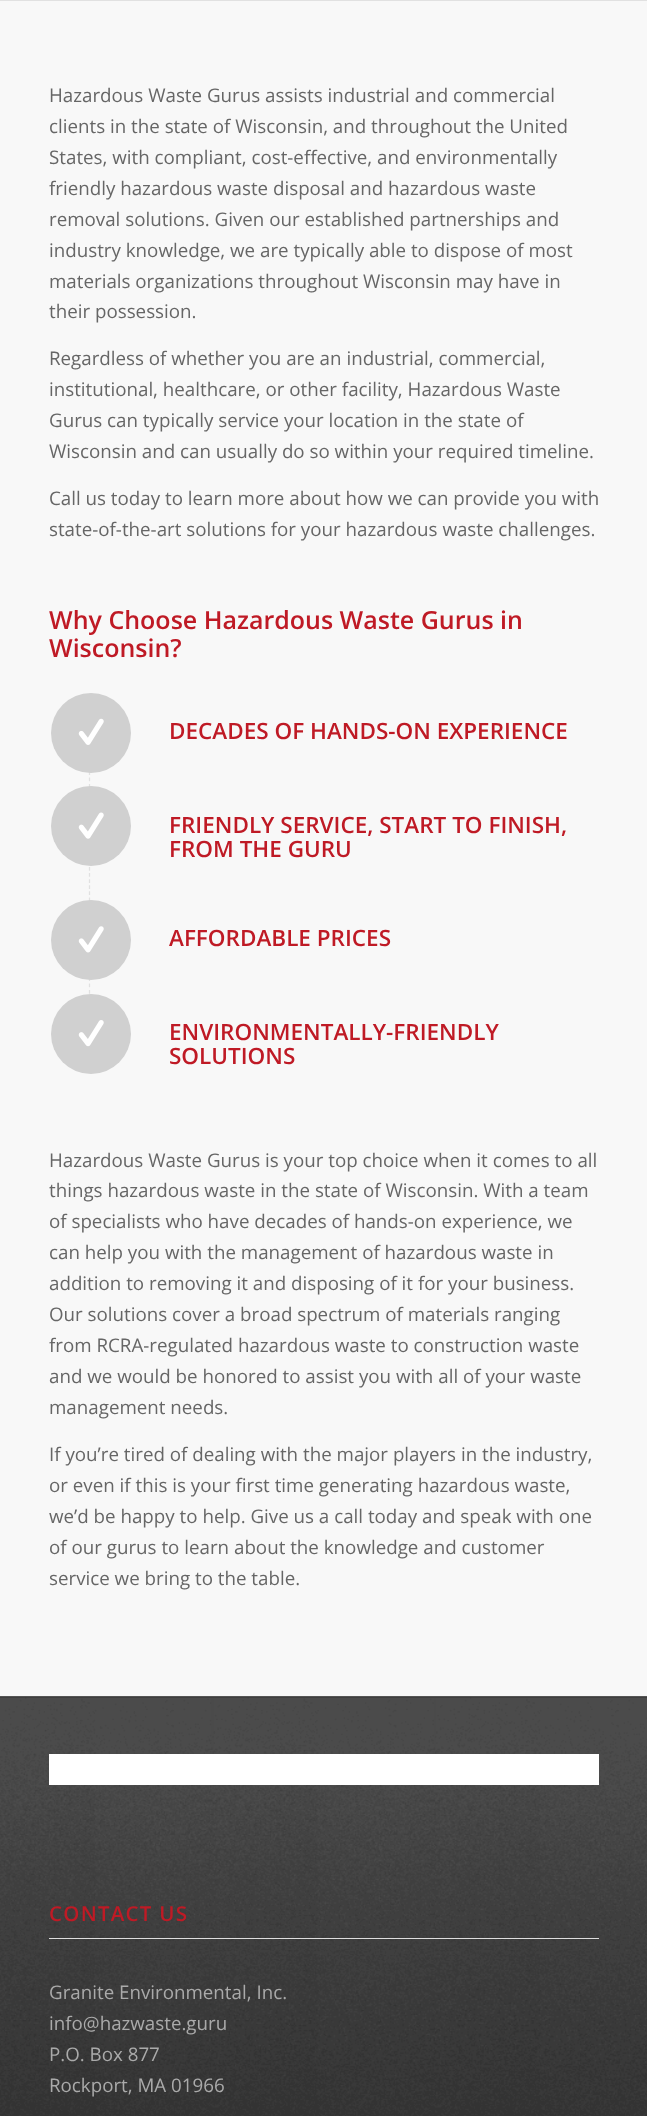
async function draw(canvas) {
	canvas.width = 647;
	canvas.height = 2116;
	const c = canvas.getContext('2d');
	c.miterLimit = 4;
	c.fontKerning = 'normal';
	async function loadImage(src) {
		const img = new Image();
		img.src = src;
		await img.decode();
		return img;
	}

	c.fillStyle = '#f8f8f8';
	c.fillRect(0, 0, 647, 2116);
	c.fillStyle = '#e1e1e1';
	c.fillRect(0, 0, 647, 1);
	c.font = '18.75px Open Sans';
	c.fillStyle = '#666';
	for (const [text, x, y] of [
		['Hazardous Waste Gurus assists industrial and commercial', 49, 102],
		['clients in the state of Wisconsin, and throughout the United', 49, 133],
		['States, with compliant, cost-effective, and environmentally', 49, 164],
		['friendly hazardous waste disposal and hazardous waste', 49, 195],
		['removal solutions. Given our established partnerships and', 49, 226],
		['industry knowledge, we are typically able to dispose of most', 49, 257],
		['materials organizations throughout Wisconsin may have in', 49, 288],
		['their possession.', 49, 318],
		['Regardless of whether you are an industrial, commercial,', 49, 365],
		['institutional, healthcare, or other facility, Hazardous Waste', 49, 396],
		['Gurus can typically service your location in the state of', 49, 427],
		['Wisconsin and can usually do so within your required timeline.', 49, 458],
		['Call us today to learn more about how we can provide you with', 49, 505],
		['state-of-the-art solutions for your hazardous waste challenges.', 49, 536],
	]) {
		c.fillText(text, x, y);
	}
	c.font = '600 25px Open Sans';
	c.fillStyle = '#bf1a25';
	c.fillText('Why Choose Hazardous Waste Gurus in', 49, 629);
	c.fillText('Wisconsin?', 49, 657);
	c.beginPath();
	c.moveTo(89.5, 694);
	c.lineTo(89.5, 787.5);
	c.strokeStyle = '#e1e1e1';
	c.lineWidth = 1.2;
	c.setLineDash([3.75, 2.68]);
	c.stroke();
	c.fillStyle = '#d0d0d0';
	c.beginPath();
	c.arc(91, 733, 40, 0, 2 * Math.PI);
	c.fill();
	c.drawImage(await loadImage('img1.png'), 78, 718, 26, 27);
	c.font = '600 22.5px Open Sans';
	c.fillStyle = '#bf1a25';
	c.fillText('DECADES OF HANDS-ON EXPERIENCE', 169, 739);
	c.beginPath();
	c.moveTo(89.5, 787.5);
	c.lineTo(89.5, 901);
	c.setLineDash([3.75, 2.36]);
	c.stroke();
	c.fillStyle = '#d0d0d0';
	c.beginPath();
	c.arc(91, 826, 40, 0, 2 * Math.PI);
	c.fill();
	c.drawImage(await loadImage('img2.png'), 78, 812, 26, 27);
	c.fillStyle = '#bf1a25';
	c.fillText('FRIENDLY SERVICE, START TO FINISH,', 169, 833);
	c.fillText('FROM THE GURU', 169, 857);
	c.beginPath();
	c.moveTo(89.5, 900);
	c.lineTo(89.5, 994);
	c.setLineDash([3.75, 2.68]);
	c.stroke();
	c.fillStyle = '#d0d0d0';
	c.beginPath();
	c.arc(91, 940, 40, 0, 2 * Math.PI);
	c.fill();
	c.drawImage(await loadImage('img3.png'), 78, 926, 26, 27);
	c.fillStyle = '#bf1a25';
	c.fillText('AFFORDABLE PRICES', 169, 946);
	c.fillStyle = '#d0d0d0';
	c.beginPath();
	c.arc(91, 1034, 40, 0, 2 * Math.PI);
	c.fill();
	c.drawImage(await loadImage('img4.png'), 78, 1020, 26, 27);
	c.fillStyle = '#bf1a25';
	c.fillText('ENVIRONMENTALLY-FRIENDLY', 169, 1040);
	c.fillText('SOLUTIONS', 169, 1064);
	c.font = '18.75px Open Sans';
	c.fillStyle = '#666';
	for (const [text, x, y] of [
		['Hazardous Waste Gurus is your top choice when it comes to all', 49, 1167],
		['things hazardous waste in the state of Wisconsin. With a team', 49, 1197],
		['of specialists who have decades of hands-on experience, we', 49, 1228],
		['can help you with the management of hazardous waste in', 49, 1259],
		['addition to removing it and disposing of it for your business.', 49, 1290],
		['Our solutions cover a broad spectrum of materials ranging', 49, 1321],
		['from RCRA-regulated hazardous waste to construction waste', 49, 1352],
		['and we would be honored to assist you with all of your waste', 49, 1383],
		['management needs.', 49, 1414],
		['If you’re tired of dealing with the major players in the industry,', 49, 1461],
		['or even if this is your first time generating hazardous waste,', 49, 1492],
		['we’d be happy to help. Give us a call today and speak with one', 49, 1523],
		['of our gurus to learn about the knowledge and customer', 49, 1554],
		['service we bring to the table.', 49, 1585],
	]) {
		c.fillText(text, x, y);
	}
	c.fillStyle = '#333';
	c.fillRect(0, 1697, 647, 419);
	c.drawImage(await loadImage('img5.png'), 0, 1697, 647, 419);
	c.fillStyle = '#555';
	c.fillRect(0, 1696, 647, 1);
	c.fillStyle = '#fff';
	c.fillRect(49, 1754, 550, 31);
	c.letterSpacing = '1.25px';
	c.font = '600 20.5px Open Sans';
	c.fillStyle = '#bf1a25';
	c.fillText('CONTACT US', 49, 1921);
	c.fillStyle = '#ddd';
	c.fillRect(49, 1938, 550, 1);
	c.letterSpacing = '0px';
	c.font = '18.75px Open Sans';
	c.fillStyle = '#aaa';
	for (const [text, x, y] of [
		['Granite Environmental, Inc.', 49, 1999],
		['info@hazwaste.guru', 49, 2030],
		['P.O. Box 877', 49, 2061],
		['Rockport, MA 01966', 49, 2092],
	]) {
		c.fillText(text, x, y);
	}
}

draw(document.querySelector('canvas'));
